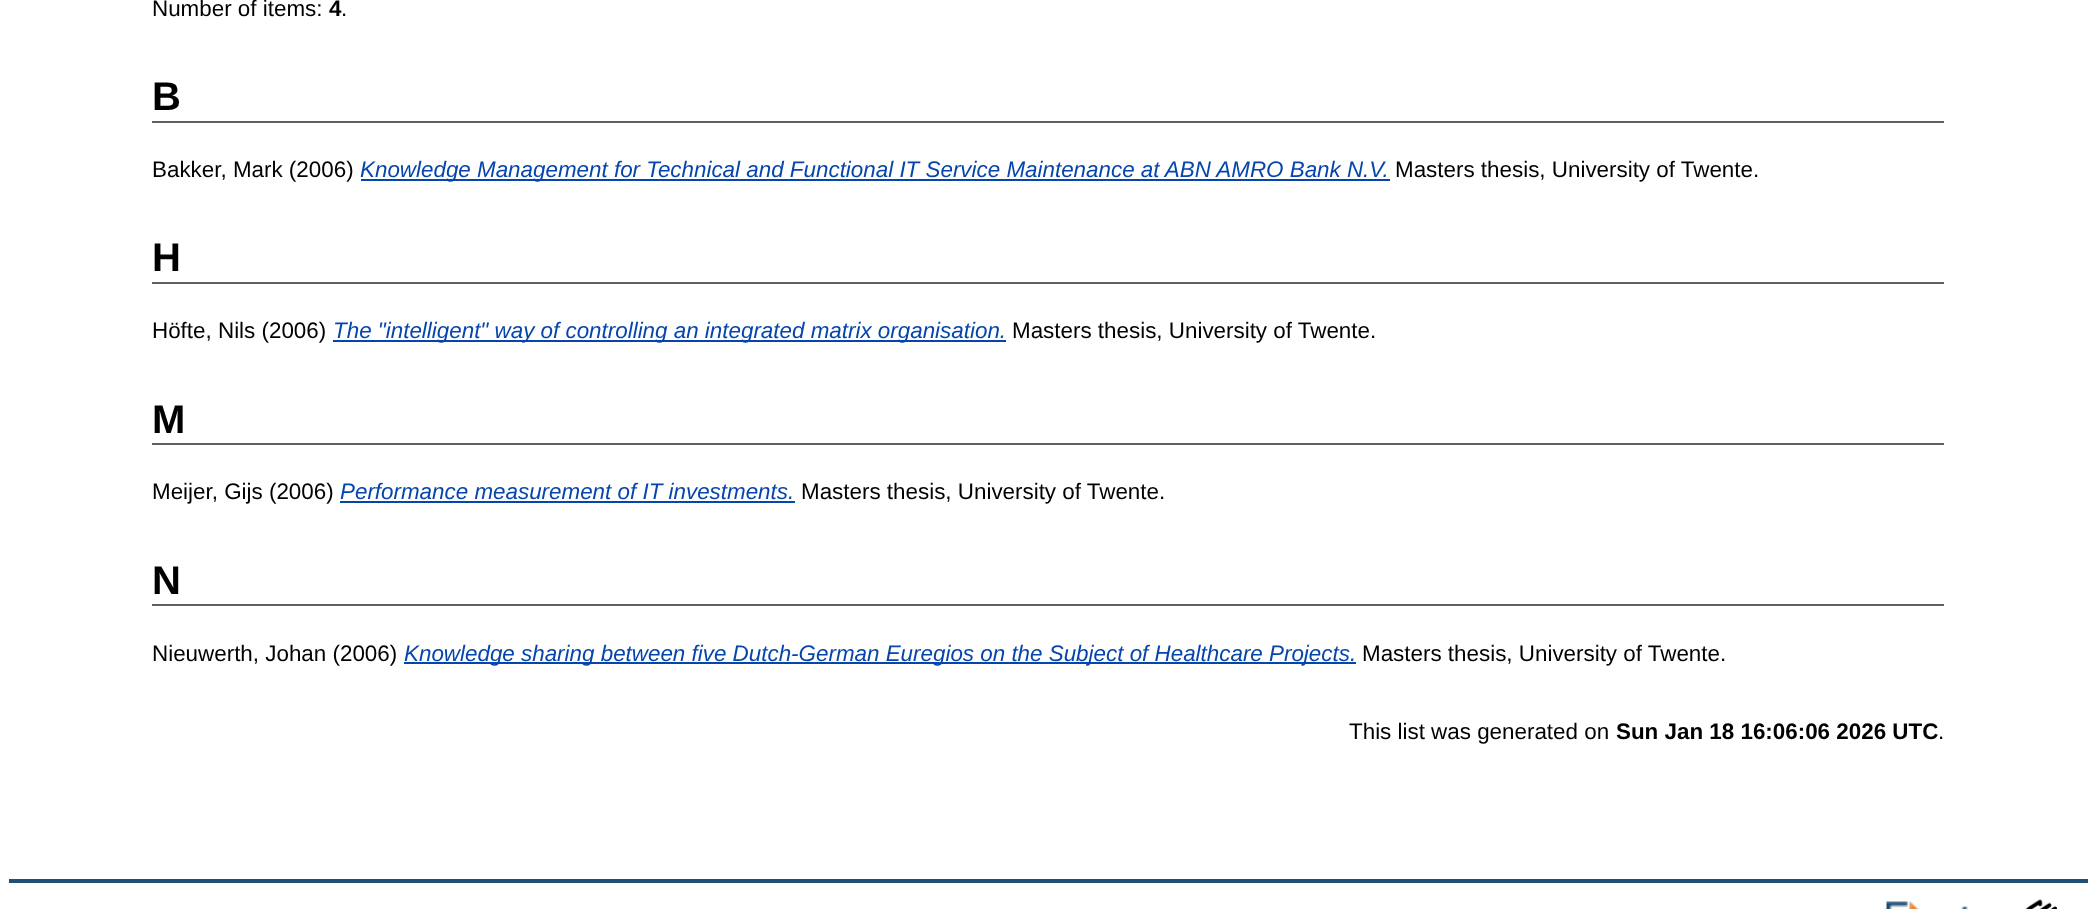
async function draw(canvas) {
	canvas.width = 2096;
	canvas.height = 909;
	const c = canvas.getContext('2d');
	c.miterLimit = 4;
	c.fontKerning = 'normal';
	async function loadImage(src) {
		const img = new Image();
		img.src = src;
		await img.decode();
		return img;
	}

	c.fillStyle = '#fff';
	c.fillRect(0, 0, 2096, 909);
	c.font = '22.4px Liberation Sans';
	c.fillStyle = '#000';
	c.fillText('Number of items:', 152, 16);
	c.font = 'bold 22.4px Liberation Sans';
	c.fillText('4', 329, 16);
	c.font = '22.4px Liberation Sans';
	c.fillText('.', 341, 16);
	c.fillStyle = '#606060';
	c.fillRect(152, 121, 1792, 2);
	c.font = 'bold 40px Liberation Sans';
	c.fillStyle = '#000';
	c.fillText('B', 152, 110);
	c.font = '22.4px Liberation Sans';
	c.fillText('Bakker, Mark (2006)', 152, 177);
	c.fillStyle = '#0645ad';
	c.fillRect(361, 179, 1029, 2);
	c.font = 'italic 22.4px Liberation Sans';
	c.fillText('Knowledge Management for Technical and Functional IT Service Maintenance at ABN AMRO Bank N.V.', 360, 177);
	c.font = '22.4px Liberation Sans';
	c.fillStyle = '#000';
	c.fillText('Masters thesis, University of Twente.', 1395, 177);
	c.fillStyle = '#606060';
	c.fillRect(152, 282, 1792, 2);
	c.font = 'bold 40px Liberation Sans';
	c.fillStyle = '#000';
	c.fillText('H', 152, 271);
	c.font = '22.4px Liberation Sans';
	c.fillText('Höfte, Nils (2006)', 152, 338);
	c.fillStyle = '#0645ad';
	c.fillRect(333, 340, 673, 2);
	c.font = 'italic 22.4px Liberation Sans';
	c.fillText('The "intelligent" way of controlling an integrated matrix organisation.', 333, 338);
	c.font = '22.4px Liberation Sans';
	c.fillStyle = '#000';
	c.fillText('Masters thesis, University of Twente.', 1012, 338);
	c.fillStyle = '#606060';
	c.fillRect(152, 443, 1792, 2);
	c.font = 'bold 40px Liberation Sans';
	c.fillStyle = '#000';
	c.fillText('M', 152, 433);
	c.font = '22.4px Liberation Sans';
	c.fillText('Meijer, Gijs (2006)', 152, 499);
	c.font = 'italic 22.4px Liberation Sans';
	c.fillStyle = '#0645ad';
	c.fillText('Performance measurement of IT investments.', 340, 499);
	c.fillRect(340, 501, 455, 2);
	c.font = '22.4px Liberation Sans';
	c.fillStyle = '#000';
	c.fillText('Masters thesis, University of Twente.', 801, 499);
	c.fillStyle = '#606060';
	c.fillRect(152, 604, 1792, 2);
	c.font = 'bold 40px Liberation Sans';
	c.fillStyle = '#000';
	c.fillText('N', 152, 594);
	c.font = '22.4px Liberation Sans';
	c.fillText('Nieuwerth, Johan (2006)', 152, 661);
	c.fillStyle = '#0645ad';
	c.fillRect(404, 662, 952, 2);
	c.font = 'italic 22.4px Liberation Sans';
	c.fillText('Knowledge sharing between five Dutch-German Euregios on the Subject of Healthcare Projects.', 404, 661);
	c.font = '22.4px Liberation Sans';
	c.fillStyle = '#000';
	c.fillText('Masters thesis, University of Twente.', 1362, 661);
	c.fillText('This list was generated on', 1349, 739);
	c.font = 'bold 22.4px Liberation Sans';
	c.fillText('Sun Jan 18 16:06:06 2026 UTC', 1616, 739);
	c.font = '22.4px Liberation Sans';
	c.fillText('.', 1938, 739);
	c.fillStyle = '#204f76';
	c.fillRect(9, 879, 2079, 4);
	c.drawImage(await loadImage('img1.png'), 1886, 901, 112, 8);
	c.drawImage(await loadImage('img2.png'), 2025, 899, 33, 10);
}

draw(document.querySelector('canvas'));
